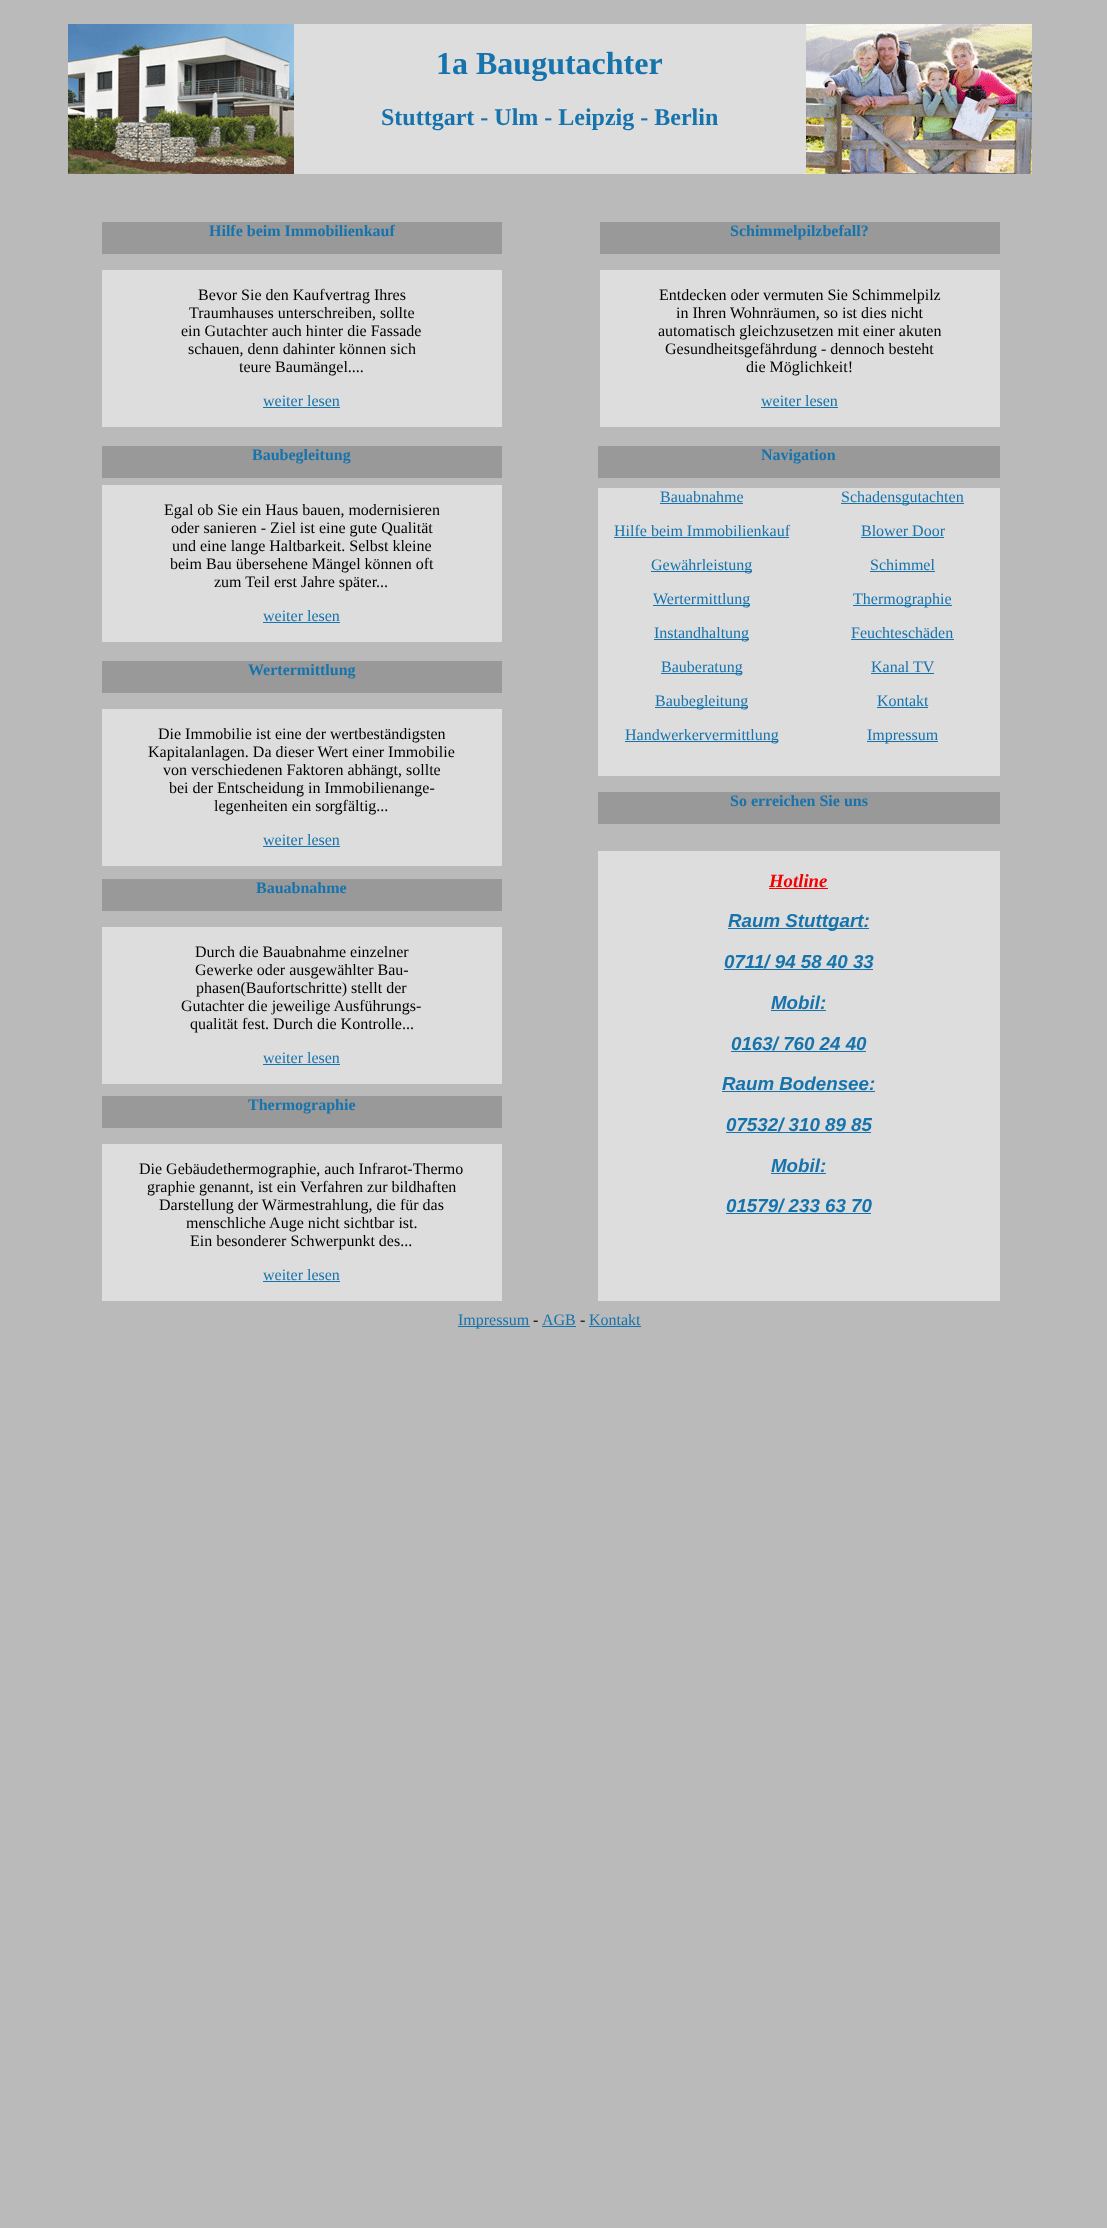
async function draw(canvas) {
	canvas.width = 1107;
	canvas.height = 2228;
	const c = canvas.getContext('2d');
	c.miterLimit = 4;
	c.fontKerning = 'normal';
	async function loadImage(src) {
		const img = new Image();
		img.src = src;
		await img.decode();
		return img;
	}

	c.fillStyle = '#bababa';
	c.fillRect(0, 0, 1107, 2228);
	c.drawImage(await loadImage('img1.png'), 68, 24, 226, 150);
	c.fillStyle = '#ddd';
	c.fillRect(294, 24, 512, 150);
	c.font = 'bold 32px Liberation Serif';
	c.fillStyle = '#1673ac';
	c.fillText('1a Baugutachter', 436, 74);
	c.font = 'bold 24px Liberation Serif';
	c.fillText('Stuttgart - Ulm - Leipzig - Berlin', 381, 125);
	c.drawImage(await loadImage('img2.png'), 806, 24, 226, 150);
	c.fillStyle = '#999';
	c.fillRect(102, 222, 400, 32);
	c.font = 'bold 16px Liberation Serif';
	c.fillStyle = '#1673ac';
	c.fillText('Hilfe beim Immobilienkauf', 209, 236);
	c.fillStyle = '#999';
	c.fillRect(600, 222, 400, 32);
	c.fillStyle = '#1673ac';
	c.fillText('Schimmelpilzbefall?', 730, 236);
	c.fillStyle = '#ddd';
	c.fillRect(102, 270, 400, 157);
	c.font = '16px Liberation Serif';
	c.fillStyle = '#000';
	for (const [text, x, y] of [
		['Bevor Sie den Kaufvertrag Ihres', 198, 300],
		['Traumhauses unterschreiben, sollte', 189, 318],
		['ein Gutachter auch hinter die Fassade', 181, 336],
		['schauen, denn dahinter können sich', 188, 354],
		['teure Baumängel....', 239, 372],
	]) {
		c.fillText(text, x, y);
	}
	c.fillStyle = '#1673ac';
	c.fillText('weiter lesen', 263, 406);
	c.fillRect(263, 407, 77, 1);
	c.fillStyle = '#ddd';
	c.fillRect(600, 270, 400, 157);
	c.fillStyle = '#000';
	for (const [text, x, y] of [
		['Entdecken oder vermuten Sie Schimmelpilz', 659, 300],
		['in Ihren Wohnräumen, so ist dies nicht', 676, 318],
		['automatisch gleichzusetzen mit einer akuten', 658, 336],
		['Gesundheitsgefährdung - dennoch besteht', 665, 354],
		['die Möglichkeit!', 746, 372],
	]) {
		c.fillText(text, x, y);
	}
	c.fillStyle = '#1673ac';
	c.fillText('weiter lesen', 761, 406);
	c.fillRect(761, 407, 77, 1);
	c.fillStyle = '#999';
	c.fillRect(102, 446, 400, 32);
	c.font = 'bold 16px Liberation Serif';
	c.fillStyle = '#1673ac';
	c.fillText('Baubegleitung', 252, 460);
	c.fillStyle = '#999';
	c.fillRect(598, 446, 402, 32);
	c.fillStyle = '#1673ac';
	c.fillText('Navigation', 761, 460);
	c.fillStyle = '#ddd';
	c.fillRect(102, 485, 400, 157);
	c.font = '16px Liberation Serif';
	c.fillStyle = '#000';
	for (const [text, x, y] of [
		['Egal ob Sie ein Haus bauen, modernisieren', 164, 515],
		['oder sanieren - Ziel ist eine gute Qualität', 171, 533],
		['und eine lange Haltbarkeit. Selbst kleine', 172, 551],
		['beim Bau übersehene Mängel können oft', 170, 569],
		['zum Teil erst Jahre später...', 214, 587],
	]) {
		c.fillText(text, x, y);
	}
	c.fillStyle = '#1673ac';
	c.fillText('weiter lesen', 263, 621);
	c.fillRect(263, 622, 77, 1);
	c.fillStyle = '#ddd';
	c.fillRect(598, 488, 402, 288);
	c.fillStyle = '#1673ac';
	c.fillText('Bauabnahme', 660, 502);
	c.fillRect(660, 503, 83, 1);
	c.fillText('Hilfe beim Immobilienkauf', 614, 536);
	c.fillRect(614, 537, 175, 1);
	c.fillRect(651, 571, 101, 1);
	c.fillText('Gewährleistung', 651, 570);
	c.fillRect(653, 605, 97, 1);
	c.fillText('Wertermittlung', 653, 604);
	c.fillRect(654, 639, 95, 1);
	c.fillText('Instandhaltung', 654, 638);
	c.fillRect(661, 673, 81, 1);
	c.fillText('Bauberatung', 661, 672);
	c.fillRect(655, 707, 93, 1);
	c.fillText('Baubegleitung', 655, 706);
	c.fillRect(625, 741, 153, 1);
	c.fillText('Handwerkervermittlung', 625, 740);
	c.fillRect(841, 503, 123, 1);
	c.fillText('Schadensgutachten', 841, 502);
	c.fillText('Blower Door', 861, 536);
	c.fillRect(861, 537, 83, 1);
	c.fillText('Schimmel', 870, 570);
	c.fillRect(870, 571, 65, 1);
	c.fillRect(853, 605, 99, 1);
	c.fillText('Thermographie', 853, 604);
	c.fillText('Feuchteschäden', 851, 638);
	c.fillRect(851, 639, 103, 1);
	c.fillText('Kanal TV', 871, 672);
	c.fillRect(871, 673, 63, 1);
	c.fillText('Kontakt', 877, 706);
	c.fillRect(877, 707, 51, 1);
	c.fillRect(867, 741, 71, 1);
	c.fillText('Impressum', 867, 740);
	c.fillStyle = '#999';
	c.fillRect(102, 661, 400, 32);
	c.font = 'bold 16px Liberation Serif';
	c.fillStyle = '#1673ac';
	c.fillText('Wertermittlung', 248, 675);
	c.fillStyle = '#ddd';
	c.fillRect(102, 709, 400, 157);
	c.font = '16px Liberation Serif';
	c.fillStyle = '#000';
	for (const [text, x, y] of [
		['Die Immobilie ist eine der wertbeständigsten', 158, 739],
		['Kapitalanlagen. Da dieser Wert einer Immobilie', 148, 757],
		['von verschiedenen Faktoren abhängt, sollte', 163, 775],
		['bei der Entscheidung in Immobilienange-', 169, 793],
		['legenheiten ein sorgfältig...', 214, 811],
	]) {
		c.fillText(text, x, y);
	}
	c.fillStyle = '#1673ac';
	c.fillText('weiter lesen', 263, 845);
	c.fillRect(263, 846, 77, 1);
	c.fillStyle = '#999';
	c.fillRect(598, 792, 402, 32);
	c.font = 'bold 16px Liberation Serif';
	c.fillStyle = '#1673ac';
	c.fillText('So erreichen Sie uns', 730, 806);
	c.fillStyle = '#999';
	c.fillRect(102, 879, 400, 32);
	c.fillStyle = '#1673ac';
	c.fillText('Bauabnahme', 256, 893);
	c.fillStyle = '#ddd';
	c.fillRect(598, 851, 402, 450);
	c.font = 'italic bold 18.75px Liberation Serif';
	c.fillStyle = '#f30000';
	c.fillText('Hotline', 769, 887);
	c.fillRect(769, 888, 59, 1);
	c.fillStyle = '#1673ac';
	c.fillRect(728, 928, 141, 1);
	c.font = 'italic bold 18.75px Liberation Sans';
	c.fillText('Raum Stuttgart:', 728, 927);
	c.fillText('0711/ 94 58 40 33', 724, 968);
	c.fillRect(724, 969, 149, 1);
	c.fillText('Mobil:', 771, 1009);
	c.fillRect(771, 1010, 55, 1);
	c.fillText('0163/ 760 24 40', 731, 1050);
	c.fillRect(731, 1051, 135, 1);
	c.fillText('Raum Bodensee:', 722, 1090);
	c.fillRect(722, 1091, 153, 1);
	c.fillText('07532/ 310 89 85', 726, 1131);
	c.fillRect(726, 1132, 145, 1);
	c.fillText('Mobil:', 771, 1172);
	c.fillRect(771, 1173, 55, 1);
	c.fillText('01579/ 233 63 70', 726, 1212);
	c.fillRect(726, 1213, 145, 1);
	c.fillStyle = '#ddd';
	c.fillRect(102, 927, 400, 157);
	c.font = '16px Liberation Serif';
	c.fillStyle = '#000';
	for (const [text, x, y] of [
		['Durch die Bauabnahme einzelner', 195, 957],
		['Gewerke oder ausgewählter Bau-', 195, 975],
		['phasen(Baufortschritte) stellt der', 196, 993],
		['Gutachter die jeweilige Ausführungs-', 181, 1011],
		['qualität fest. Durch die Kontrolle...', 190, 1029],
	]) {
		c.fillText(text, x, y);
	}
	c.fillStyle = '#1673ac';
	c.fillText('weiter lesen', 263, 1063);
	c.fillRect(263, 1064, 77, 1);
	c.fillStyle = '#999';
	c.fillRect(102, 1096, 400, 32);
	c.font = 'bold 16px Liberation Serif';
	c.fillStyle = '#1673ac';
	c.fillText('Thermographie', 248, 1110);
	c.fillStyle = '#ddd';
	c.fillRect(102, 1144, 400, 157);
	c.font = '16px Liberation Serif';
	c.fillStyle = '#000';
	for (const [text, x, y] of [
		['Die Gebäudethermographie, auch Infrarot-Thermo', 139, 1174],
		['graphie genannt, ist ein Verfahren zur bildhaften', 147, 1192],
		['Darstellung der Wärmestrahlung, die für das', 159, 1210],
		['menschliche Auge nicht sichtbar ist.', 186, 1228],
		['Ein besonderer Schwerpunkt des...', 190, 1246],
	]) {
		c.fillText(text, x, y);
	}
	c.fillStyle = '#1673ac';
	c.fillText('weiter lesen', 263, 1280);
	c.fillRect(263, 1281, 77, 1);
	c.fillRect(458, 1326, 72, 1);
	c.fillText('Impressum', 458, 1325);
	c.fillStyle = '#000';
	c.fillText('-', 533, 1325);
	c.fillStyle = '#1673ac';
	c.fillText('AGB', 542, 1325);
	c.fillRect(542, 1326, 34, 1);
	c.fillStyle = '#000';
	c.fillText('-', 580, 1325);
	c.fillStyle = '#1673ac';
	c.fillText('Kontakt', 589, 1325);
	c.fillRect(589, 1326, 52, 1);
}

draw(document.querySelector('canvas'));
